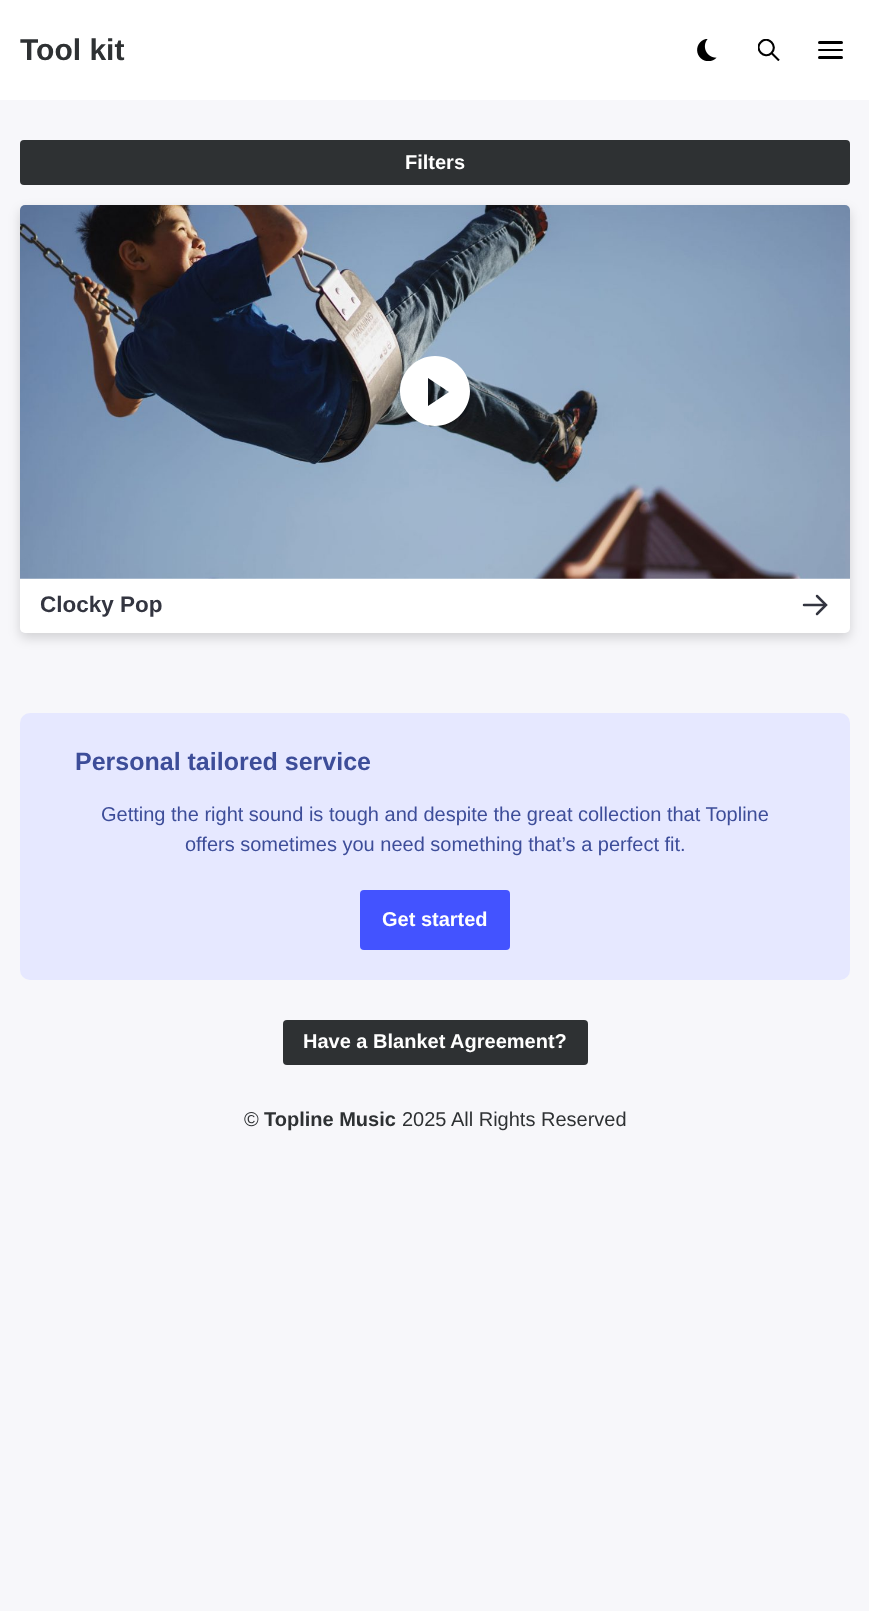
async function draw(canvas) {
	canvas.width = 869;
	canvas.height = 1611;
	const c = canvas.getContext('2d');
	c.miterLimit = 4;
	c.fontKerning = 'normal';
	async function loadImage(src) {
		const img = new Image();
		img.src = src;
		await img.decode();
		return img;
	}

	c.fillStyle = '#fff';
	c.fillRect(0, 0, 869, 1611);
	c.font = 'bold 30px Liberation Sans';
	c.fillStyle = '#2e3133';
	c.fillText('Tool kit', 20, 60);
	c.drawImage(await loadImage('img1.png'), 697, 39, 20, 22);
	c.save();
	c.beginPath();
	c.rect(758, 39, 22, 22);
	c.clip();
	c.beginPath();
	c.moveTo(771.5, 53);
	c.bezierCurveTo(764.5, 60, 753.5, 49, 761, 42);
	c.bezierCurveTo(768, 35, 778.5, 46, 771.5, 53);
	c.lineTo(779, 60.5);
	c.closePath();
	c.strokeStyle = '#000';
	c.lineWidth = 2.1;
	c.lineCap = 'round';
	c.stroke();
	c.restore();
	c.fillStyle = '#000';
	c.beginPath();
	c.roundRect(818, 41, 25, 3, 1.5);
	c.fill();
	c.beginPath();
	c.roundRect(818, 49, 25, 2, 1);
	c.fill();
	c.beginPath();
	c.roundRect(818, 56, 25, 3, 1.5);
	c.fill();
	c.fillStyle = '#f7f7fa';
	c.fillRect(0, 100, 869, 1511);
	c.fillStyle = '#2e3133';
	c.beginPath();
	c.roundRect(20, 140, 830, 45, 4);
	c.fill();
	c.font = 'bold 20px Liberation Sans';
	c.fillStyle = '#fff';
	c.fillText('Filters', 405, 169);
	c.fillStyle = '#00000026';
	c.filter = 'blur(6px)';
	c.beginPath();
	c.roundRect(20, 210, 830, 428, 5);
	c.fill();
	c.filter = 'none';
	c.fillStyle = '#fff';
	c.beginPath();
	c.roundRect(20, 205, 830, 428, 5);
	c.fill();
	c.drawImage(await loadImage('img2.png'), 20, 205, 830, 374);
	c.beginPath();
	c.moveTo(435, 356);
	c.bezierCurveTo(416, 356, 400, 372, 400, 391);
	c.bezierCurveTo(400, 410, 416, 426, 435, 426);
	c.bezierCurveTo(454, 426, 470, 410, 470, 391);
	c.bezierCurveTo(470, 372, 454, 356, 435, 356);
	c.closePath();
	c.moveTo(428, 378);
	c.lineTo(428, 406);
	c.lineTo(449, 392);
	c.closePath();
	c.fill('evenodd');
	c.font = 'bold 22.5px Liberation Sans';
	c.fillStyle = '#333540';
	c.fillText('Clocky Pop', 40, 612);
	c.beginPath();
	c.moveTo(804, 605);
	c.lineTo(825, 605);
	c.strokeStyle = '#333540';
	c.lineWidth = 2.5;
	c.lineCap = 'round';
	c.lineJoin = 'round';
	c.stroke();
	c.beginPath();
	c.moveTo(817, 596);
	c.lineTo(826, 605);
	c.lineTo(817, 614);
	c.lineJoin = 'miter';
	c.stroke();
	c.fillStyle = '#e6e8ff';
	c.beginPath();
	c.roundRect(20, 713, 830, 267, 10);
	c.fill();
	c.font = 'bold 25px Liberation Sans';
	c.fillStyle = '#3d4d99';
	c.fillText('Personal tailored service', 75, 770);
	c.font = '20px Liberation Sans';
	c.fillText('Getting the right sound is tough and despite the great collection that Topline', 101, 821);
	c.fillText('offers sometimes you need something that’s a perfect fit.', 185, 851);
	c.fillStyle = '#4353ff';
	c.beginPath();
	c.roundRect(360, 890, 150, 60, 4);
	c.fill();
	c.font = 'bold 20px Liberation Sans';
	c.fillStyle = '#fff';
	c.fillText('Get started', 382, 926);
	c.fillStyle = '#2e3133';
	c.beginPath();
	c.roundRect(283, 1020, 305, 45, 4);
	c.fill();
	c.fillStyle = '#fff';
	c.fillText('Have a Blanket Agreement?', 303, 1048);
	c.font = '20px Liberation Sans';
	c.fillStyle = '#2e3133';
	c.fillText('©', 244, 1126);
	c.font = 'bold 20px Liberation Sans';
	c.fillText('Topline Music', 264, 1126);
	c.font = '20px Liberation Sans';
	c.fillText('2025 All Rights Reserved', 402, 1126);
}

draw(document.querySelector('canvas'));
